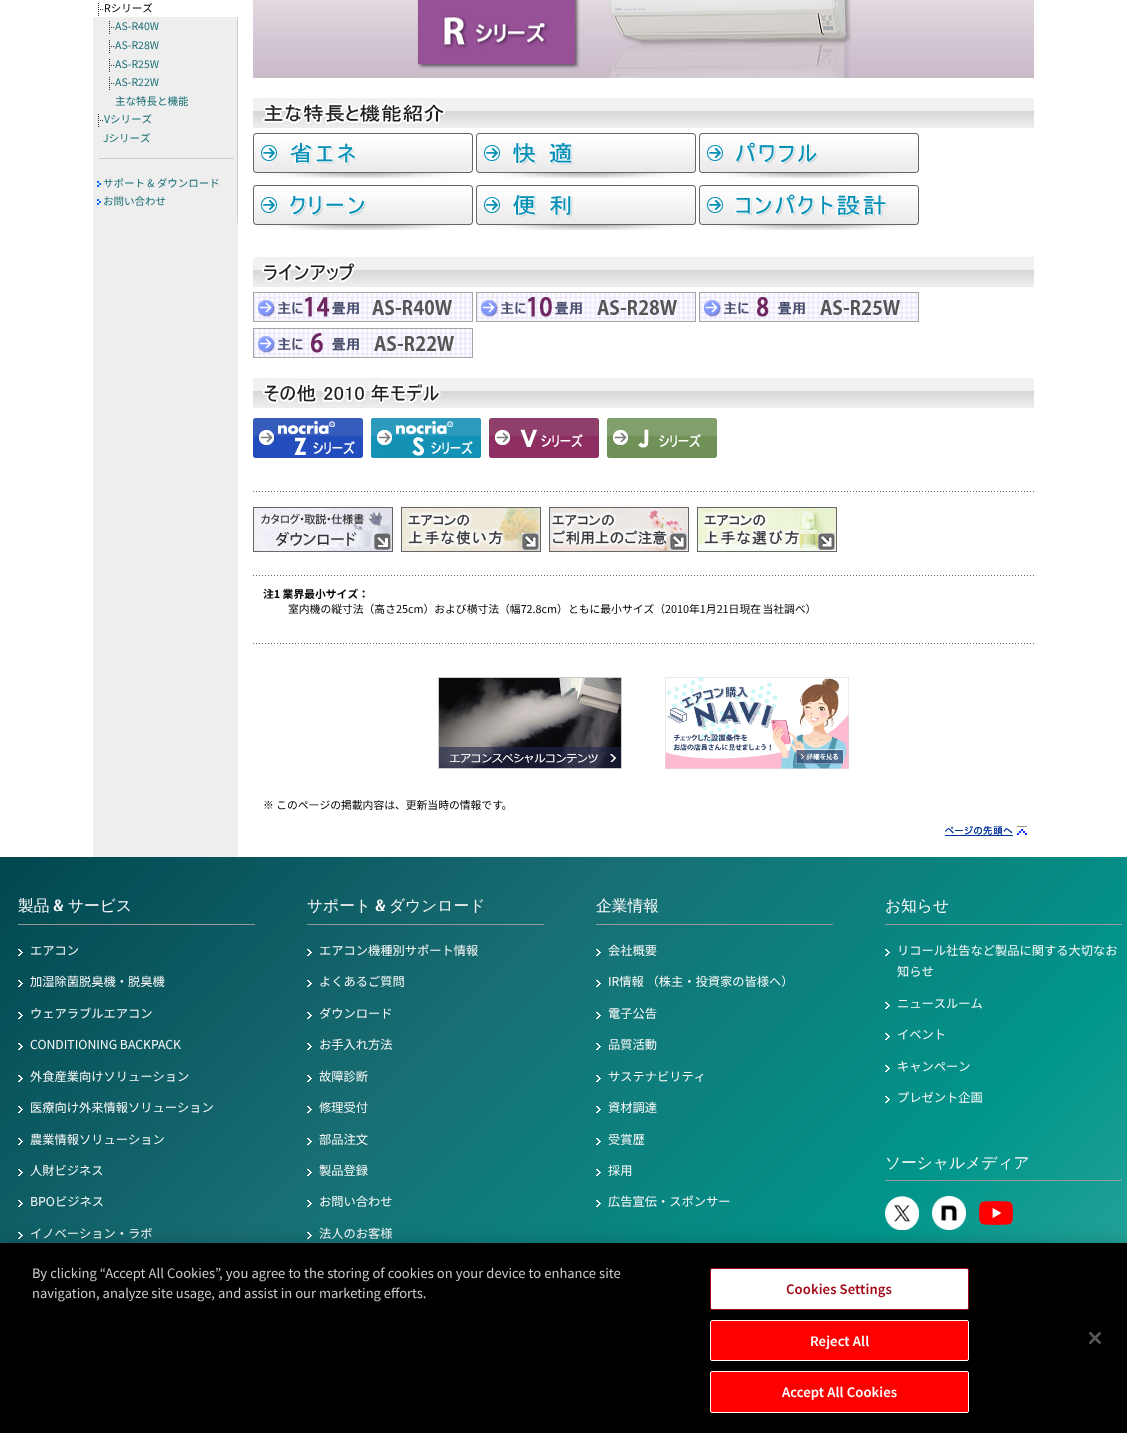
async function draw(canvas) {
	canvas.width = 1127;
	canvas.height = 1433;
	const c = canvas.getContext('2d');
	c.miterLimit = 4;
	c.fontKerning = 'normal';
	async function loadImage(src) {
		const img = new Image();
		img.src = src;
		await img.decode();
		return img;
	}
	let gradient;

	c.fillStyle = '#fff';
	c.fillRect(0, 0, 1127, 1433);
	c.fillStyle = '#eee';
	c.fillRect(93, 17, 145, 840);
	c.fillStyle = '#ccc';
	c.fillRect(237, 17, 1, 206);
	c.drawImage(await loadImage('img1.png'), 98, 3, 5, 13);
	c.font = '10.5px Noto Sans JP';
	c.fillStyle = '#000';
	c.fillText('Rシリーズ', 104, 12);
	c.drawImage(await loadImage('img2.png'), 109, 21, 5, 13);
	c.fillStyle = '#186e73';
	c.fillText('AS-R40W', 115, 30);
	c.drawImage(await loadImage('img2.png'), 109, 40, 5, 13);
	c.fillText('AS-R28W', 115, 49);
	c.drawImage(await loadImage('img2.png'), 109, 59, 5, 13);
	c.fillText('AS-R25W', 115, 68);
	c.drawImage(await loadImage('img2.png'), 109, 77, 5, 13);
	c.fillText('AS-R22W', 115, 86);
	c.fillText('主な特長と機能', 115, 105);
	c.drawImage(await loadImage('img2.png'), 98, 114, 5, 13);
	c.fillText('Vシリーズ', 104, 123);
	c.fillText('Jシリーズ', 103, 142);
	c.fillStyle = '#ccc';
	c.fillRect(99, 158, 135, 1);
	c.drawImage(await loadImage('img3.png'), 97, 181, 4, 6);
	c.fillStyle = '#186e73';
	c.fillText('サポート & ダウンロード', 103, 187);
	c.drawImage(await loadImage('img3.png'), 97, 199, 4, 6);
	c.fillText('お問い合わせ', 103, 205);
	c.drawImage(await loadImage('img4.png'), 253, 0, 781, 78);
	c.drawImage(await loadImage('img5.png'), 417, 0, 435, 78);
	c.drawImage(await loadImage('img6.png'), 253, 98, 781, 30);
	c.drawImage(await loadImage('img7.png'), 262, 102, 184, 22);
	c.drawImage(await loadImage('img8.png'), 253, 133, 220, 45);
	c.drawImage(await loadImage('img9.png'), 476, 133, 220, 45);
	c.drawImage(await loadImage('img10.png'), 699, 133, 220, 45);
	c.drawImage(await loadImage('img11.png'), 253, 185, 220, 45);
	c.drawImage(await loadImage('img12.png'), 476, 185, 220, 45);
	c.drawImage(await loadImage('img13.png'), 699, 185, 220, 45);
	c.drawImage(await loadImage('img6.png'), 253, 257, 781, 30);
	c.drawImage(await loadImage('img14.png'), 262, 261, 94, 22);
	c.drawImage(await loadImage('img15.png'), 253, 292, 220, 30);
	c.drawImage(await loadImage('img16.png'), 476, 292, 220, 30);
	c.drawImage(await loadImage('img17.png'), 699, 292, 220, 30);
	c.drawImage(await loadImage('img18.png'), 253, 328, 220, 30);
	c.drawImage(await loadImage('img6.png'), 253, 378, 781, 30);
	c.drawImage(await loadImage('img19.png'), 262, 382, 179, 22);
	c.drawImage(await loadImage('img20.png'), 253, 418, 110, 40);
	c.drawImage(await loadImage('img21.png'), 371, 418, 110, 40);
	c.drawImage(await loadImage('img22.png'), 489, 418, 110, 40);
	c.drawImage(await loadImage('img23.png'), 607, 418, 110, 40);
	c.drawImage(await loadImage('img24.png'), 253, 491, 781, 1);
	c.drawImage(await loadImage('img25.png'), 253, 507, 140, 45);
	c.drawImage(await loadImage('img26.png'), 401, 507, 140, 45);
	c.drawImage(await loadImage('img27.png'), 549, 507, 140, 45);
	c.drawImage(await loadImage('img28.png'), 697, 507, 140, 45);
	c.drawImage(await loadImage('img24.png'), 253, 575, 781, 1);
	c.font = 'bold 10.8px Noto Sans JP';
	c.fillStyle = '#000';
	c.fillText('注1 業界最小サイズ：', 263, 598);
	c.wordSpacing = '-1px';
	c.font = '10.8px Noto Sans JP';
	c.fillText('室内機の縦寸法（高さ25cm）および横寸法（幅72.8cm）ともに最小サイズ（2010年1月21日現在 当社調べ）', 288, 613);
	c.drawImage(await loadImage('img24.png'), 253, 643, 781, 1);
	c.drawImage(await loadImage('img29.png'), 438, 677, 184, 92);
	c.drawImage(await loadImage('img30.png'), 665, 677, 184, 92);
	c.wordSpacing = '0px';
	c.fillText('※ このページの掲載内容は、更新当時の情報です。', 263, 809);
	c.drawImage(await loadImage('img31.png'), 945, 826, 82, 10);
	gradient = c.createLinearGradient(93, 764, 1034, 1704);
	gradient.addColorStop(0, '#004750');
	gradient.addColorStop(0.33, '#186e73');
	gradient.addColorStop(0.66, '#00958b');
	gradient.addColorStop(1, '#50b2aa');
	c.fillStyle = gradient;
	c.fillRect(0, 857, 1127, 386);
	c.fillStyle = '#999';
	c.fillRect(18, 924, 237, 1);
	c.font = '500 15.75px WenQuanYi Zen Hei';
	c.fillStyle = '#f8f8f8';
	c.fillText('製品', 18, 911);
	c.font = 'bold 15.75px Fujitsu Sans';
	c.fillText('&', 53, 911);
	c.font = '500 15.75px WenQuanYi Zen Hei';
	c.fillText('サービス', 68, 911);
	c.drawImage(await loadImage('img32.png'), 18, 949, 5, 7);
	c.font = '12.25px Noto Sans JP';
	c.fillText('エアコン', 30, 955);
	c.drawImage(await loadImage('img33.png'), 18, 980, 5, 7);
	c.fillText('加湿除菌脱臭機・脱臭機', 30, 986);
	c.drawImage(await loadImage('img34.png'), 18, 1012, 5, 7);
	c.fillText('ウェアラブルエアコン', 30, 1018);
	c.drawImage(await loadImage('img35.png'), 18, 1043, 5, 7);
	c.fillText('CONDITIONING BACKPACK', 30, 1049);
	c.drawImage(await loadImage('img36.png'), 18, 1075, 5, 7);
	c.fillText('外食産業向けソリューション', 30, 1081);
	c.drawImage(await loadImage('img37.png'), 18, 1106, 5, 7);
	c.fillText('医療向け外来情報ソリューション', 30, 1112);
	c.drawImage(await loadImage('img38.png'), 18, 1138, 5, 7);
	c.fillText('農業情報ソリューション', 30, 1144);
	c.drawImage(await loadImage('img39.png'), 18, 1169, 5, 7);
	c.fillText('人財ビジネス', 30, 1175);
	c.drawImage(await loadImage('img40.png'), 18, 1200, 5, 7);
	c.fillText('BPOビジネス', 30, 1206);
	c.drawImage(await loadImage('img41.png'), 18, 1232, 5, 7);
	c.fillText('イノベーション・ラボ', 30, 1238);
	c.fillStyle = '#999';
	c.fillRect(307, 924, 237, 1);
	c.font = '500 15.75px WenQuanYi Zen Hei';
	c.fillStyle = '#f8f8f8';
	c.fillText('サポート', 307, 911);
	c.font = 'bold 15.75px Fujitsu Sans';
	c.fillText('&', 375, 911);
	c.font = '500 15.75px WenQuanYi Zen Hei';
	c.fillText('ダウンロード', 389, 911);
	c.drawImage(await loadImage('img42.png'), 307, 949, 5, 7);
	c.font = '12.25px Noto Sans JP';
	c.fillText('エアコン機種別サポート情報', 319, 955);
	c.drawImage(await loadImage('img43.png'), 307, 980, 5, 7);
	c.fillText('よくあるご質問', 319, 986);
	c.drawImage(await loadImage('img44.png'), 307, 1012, 5, 7);
	c.fillText('ダウンロード', 319, 1018);
	c.drawImage(await loadImage('img45.png'), 307, 1043, 5, 7);
	c.fillText('お手入れ方法', 319, 1049);
	c.drawImage(await loadImage('img46.png'), 307, 1075, 5, 7);
	c.fillText('故障診断', 319, 1081);
	c.drawImage(await loadImage('img47.png'), 307, 1106, 5, 7);
	c.fillText('修理受付', 319, 1112);
	c.drawImage(await loadImage('img48.png'), 307, 1138, 5, 7);
	c.fillText('部品注文', 319, 1144);
	c.drawImage(await loadImage('img49.png'), 307, 1169, 5, 7);
	c.fillText('製品登録', 319, 1175);
	c.drawImage(await loadImage('img50.png'), 307, 1200, 5, 7);
	c.fillText('お問い合わせ', 319, 1206);
	c.drawImage(await loadImage('img51.png'), 307, 1232, 5, 7);
	c.fillText('法人のお客様', 319, 1238);
	c.fillStyle = '#999';
	c.fillRect(596, 924, 237, 1);
	c.font = '500 15.75px WenQuanYi Zen Hei';
	c.fillStyle = '#f8f8f8';
	c.fillText('企業情報', 596, 911);
	c.drawImage(await loadImage('img52.png'), 596, 949, 5, 7);
	c.font = '12.25px Noto Sans JP';
	c.fillText('会社概要', 608, 955);
	c.drawImage(await loadImage('img53.png'), 596, 980, 5, 7);
	c.fillText('IR情報 （株主・投資家の皆様へ）', 608, 986);
	c.drawImage(await loadImage('img54.png'), 596, 1012, 5, 7);
	c.fillText('電子公告', 608, 1018);
	c.drawImage(await loadImage('img55.png'), 596, 1043, 5, 7);
	c.fillText('品質活動', 608, 1049);
	c.drawImage(await loadImage('img56.png'), 596, 1075, 5, 7);
	c.fillText('サステナビリティ', 608, 1081);
	c.drawImage(await loadImage('img57.png'), 596, 1106, 5, 7);
	c.fillText('資材調達', 608, 1112);
	c.drawImage(await loadImage('img58.png'), 596, 1138, 5, 7);
	c.fillText('受賞歴', 608, 1144);
	c.drawImage(await loadImage('img59.png'), 596, 1169, 5, 7);
	c.fillText('採用', 608, 1175);
	c.drawImage(await loadImage('img60.png'), 596, 1200, 5, 7);
	c.fillText('広告宣伝・スポンサー', 608, 1206);
	c.fillStyle = '#999';
	c.fillRect(885, 924, 237, 1);
	c.font = '500 15.75px WenQuanYi Zen Hei';
	c.fillStyle = '#f8f8f8';
	c.fillText('お知らせ', 885, 911);
	c.drawImage(await loadImage('img61.png'), 885, 949, 5, 7);
	c.font = '12.25px Noto Sans JP';
	c.fillText('リコール社告など製品に関する大切なお', 897, 955);
	c.fillText('知らせ', 897, 976);
	c.drawImage(await loadImage('img62.png'), 885, 1002, 5, 7);
	c.fillText('ニュースルーム', 897, 1008);
	c.drawImage(await loadImage('img63.png'), 885, 1033, 5, 7);
	c.fillText('イベント', 897, 1039);
	c.drawImage(await loadImage('img64.png'), 885, 1065, 5, 7);
	c.fillText('キャンペーン', 897, 1071);
	c.drawImage(await loadImage('img65.png'), 885, 1096, 5, 7);
	c.fillText('プレゼント企画', 897, 1102);
	c.fillStyle = '#999';
	c.fillRect(885, 1180, 237, 1);
	c.font = '500 15.75px WenQuanYi Zen Hei';
	c.fillStyle = '#f8f8f8';
	c.fillText('ソーシャルメディア', 885, 1168);
	c.drawImage(await loadImage('img66.png'), 885, 1196, 34, 34);
	c.drawImage(await loadImage('img67.png'), 932, 1196, 34, 34);
	c.drawImage(await loadImage('img68.png'), 979, 1201, 34, 24);
	c.fillStyle = '#00000033';
	c.filter = 'blur(9px)';
	c.beginPath();
	c.rect(0, 1243, 1127, 190);
	c.fill();
	c.filter = 'none';
	c.fillStyle = '#000';
	c.fillRect(0, 1243, 1127, 190);
	c.wordSpacing = '0.2px';
	c.font = '13px Noto Sans JP';
	c.fillStyle = '#ccc';
	c.fillText('By clicking “Accept All Cookies”, you agree to the storing of cookies on your device to enhance site', 32, 1278);
	c.wordSpacing = '0px';
	c.fillText('navigation, analyze site usage, and assist in our marketing efforts.', 32, 1298);
	c.fillStyle = '#fff';
	c.beginPath();
	c.roundRect(710.5, 1268.5, 258, 41, 1.5);
	c.fill();
	c.strokeStyle = '#a30b1a';
	c.stroke();
	c.letterSpacing = '0.1px';
	c.font = '600 13px Noto Sans JP';
	c.fillStyle = '#a30b1a';
	c.fillText('Cookies Settings', 786, 1294);
	c.fillStyle = '#f00';
	c.beginPath();
	c.roundRect(710.5, 1320.5, 258, 40, 1.5);
	c.fill();
	c.strokeStyle = '#fff';
	c.stroke();
	c.fillStyle = '#fff';
	c.fillText('Reject All', 810, 1346);
	c.fillStyle = '#f00';
	c.beginPath();
	c.roundRect(710.5, 1371.5, 258, 41, 1.5);
	c.fill();
	c.stroke();
	c.fillStyle = '#fff';
	c.fillText('Accept All Cookies', 782, 1397);
	c.drawImage(await loadImage('img69.png'), 1089, 1332, 12, 12);
}

draw(document.querySelector('canvas'));
